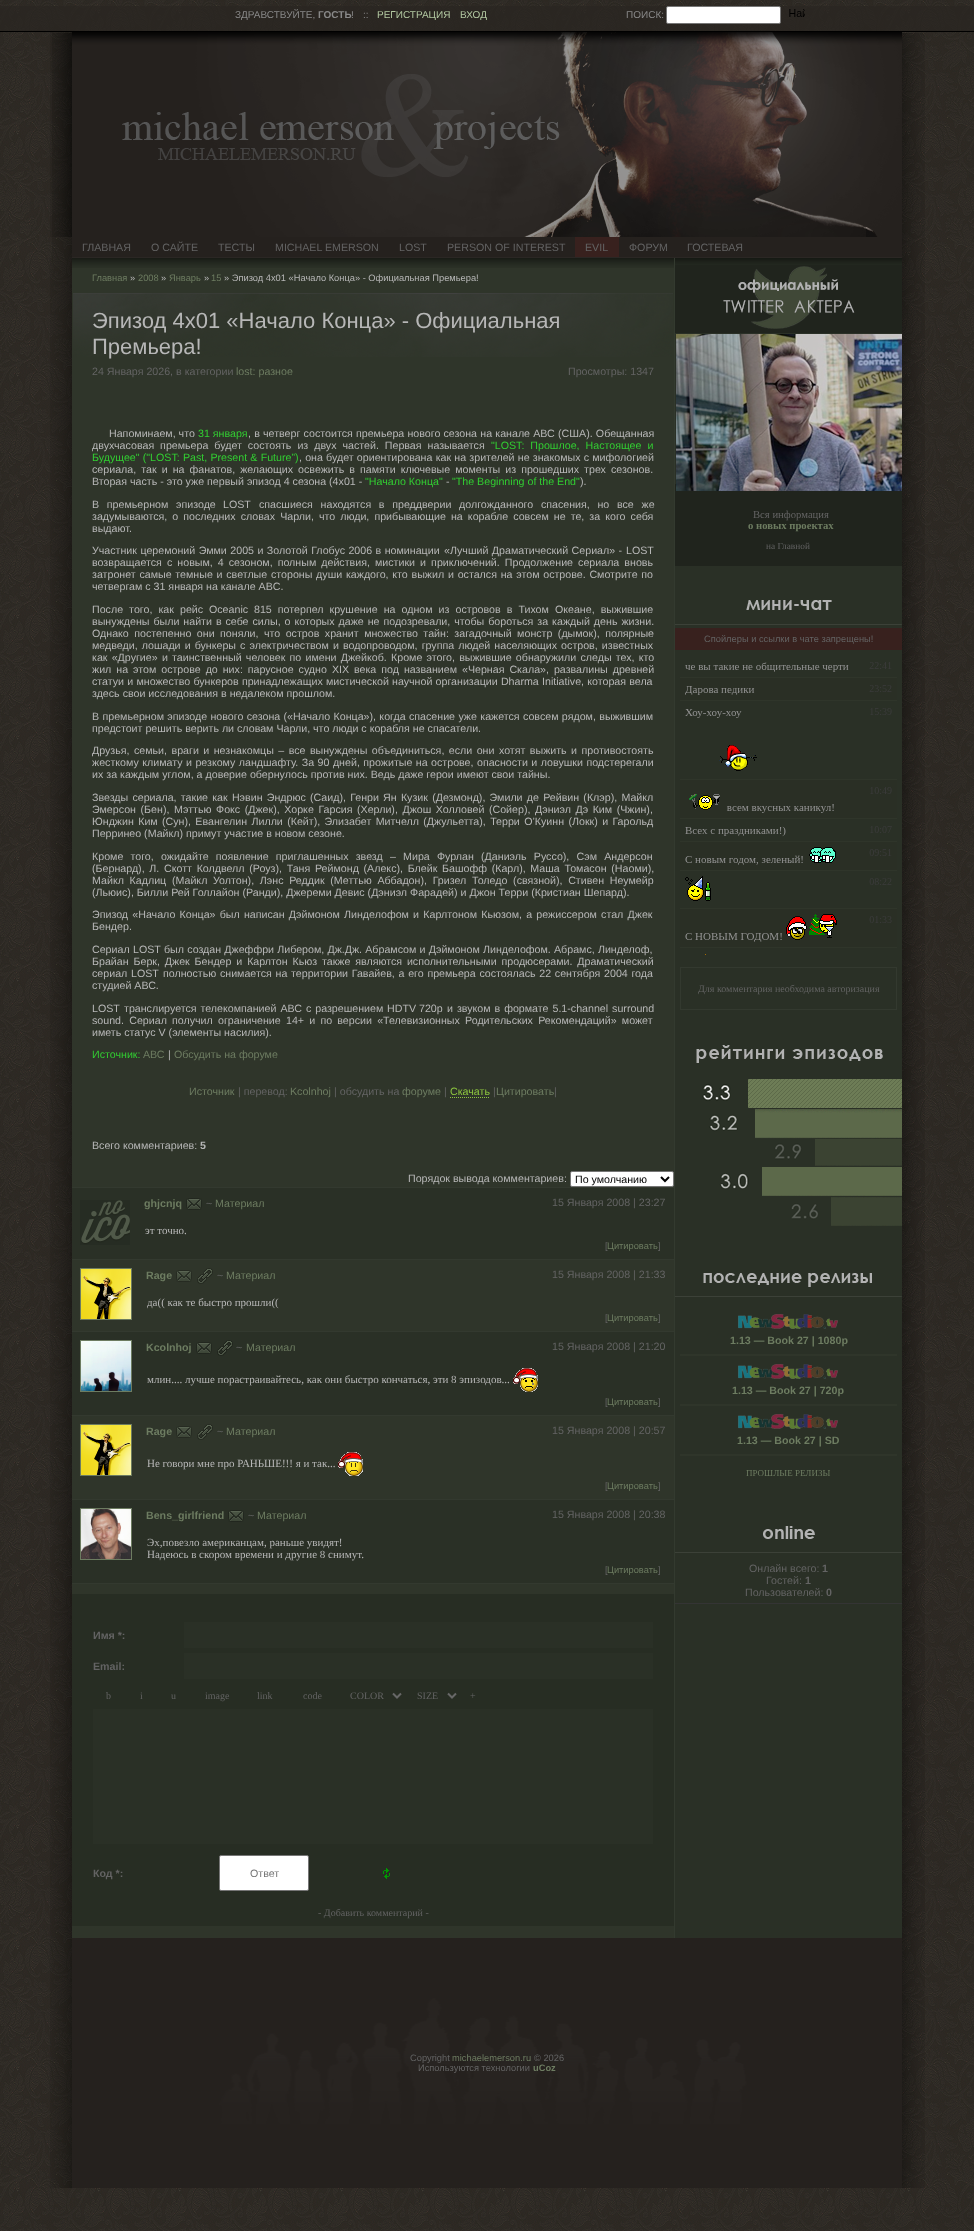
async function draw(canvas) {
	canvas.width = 974;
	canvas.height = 2231;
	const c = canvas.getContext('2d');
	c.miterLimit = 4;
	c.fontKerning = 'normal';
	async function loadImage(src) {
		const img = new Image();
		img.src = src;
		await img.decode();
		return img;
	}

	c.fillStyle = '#fff';
	c.fillRect(0, 0, 974, 2231);
	c.drawImage(await loadImage('img1.png'), 0, 0, 974, 2231);
	c.fillStyle = '#2a2622bd';
	c.fillRect(0, 6, 974, 25);
	c.fillStyle = '#000';
	c.fillRect(0, 31, 974, 1);
	c.font = '10px Liberation Sans';
	c.fillStyle = '#898989';
	c.fillText('ЗДРАВСТВУЙТЕ,', 235, 18);
	c.font = 'bold 10px Liberation Sans';
	c.fillText('ГОСТЬ', 318, 18);
	c.font = '10px Liberation Sans';
	c.fillText('!', 351, 18);
	c.fillText('::', 363, 18);
	c.fillStyle = '#b3c9a2';
	c.fillText('РЕГИСТРАЦИЯ', 377, 18);
	c.fillText('ВХОД', 460, 18);
	c.fillStyle = '#898989';
	c.fillText('ПОИСК:', 626, 18);
	c.fillStyle = '#fff';
	c.beginPath();
	c.roundRect(666.5, 6.5, 114, 17, 1.5);
	c.fill();
	c.strokeStyle = '#767676';
	c.stroke();
	c.drawImage(await loadImage('img2.png'), 789, 9, 16, 8);
	c.drawImage(await loadImage('img3.png'), 50, 32, 22, 205);
	c.drawImage(await loadImage('img4.png'), 52, 33, 20, 204);
	c.drawImage(await loadImage('img5.png'), 72, 32, 830, 205);
	c.drawImage(await loadImage('img6.png'), 902, 33, 23, 204);
	c.drawImage(await loadImage('img7.png'), 52, 237, 20, 21);
	c.fillStyle = '#25211e';
	c.fillRect(72, 237, 830, 20);
	c.fillStyle = '#2b2724';
	c.fillRect(72, 257, 830, 1);
	c.font = '10.67px Liberation Sans';
	c.fillStyle = '#636363';
	for (const [text, x, y] of [
		['ГЛАВНАЯ', 82, 251],
		['О САЙТЕ', 151, 251],
		['ТЕСТЫ', 218, 251],
		['MICHAEL EMERSON', 275, 251],
		['LOST', 399, 251],
		['PERSON OF INTEREST', 447, 251],
	]) {
		c.fillText(text, x, y);
	}
	c.fillStyle = '#38211e';
	c.fillRect(575, 237, 44, 20);
	c.fillStyle = '#636363';
	for (const [text, x, y] of [
		['EVIL', 585, 251],
		['ФОРУМ', 629, 251],
		['ГОСТЕВАЯ', 687, 251],
	]) {
		c.fillText(text, x, y);
	}
	c.drawImage(await loadImage('img8.png'), 902, 237, 23, 21);
	c.drawImage(await loadImage('img9.png'), 50, 258, 22, 1680);
	c.fillStyle = '#2f352a';
	c.fillRect(72, 258, 602, 1680);
	c.drawImage(await loadImage('img10.png'), 72, 258, 602, 10);
	c.font = '9.3px Liberation Sans';
	c.fillStyle = '#6d7c61';
	c.fillText('Главная', 92, 281);
	c.fillStyle = '#b7b7b7';
	c.fillText('»', 130, 281);
	c.fillStyle = '#6d7c61';
	c.fillText('2008', 138, 281);
	c.fillStyle = '#b7b7b7';
	c.fillText('»', 161, 281);
	c.fillStyle = '#6d7c61';
	c.fillText('Январь', 169, 281);
	c.fillStyle = '#b7b7b7';
	c.fillText('»', 204, 281);
	c.fillStyle = '#6d7c61';
	c.fillText('15', 211, 281);
	c.fillStyle = '#b7b7b7';
	c.fillText('» Эпизод 4х01 «Начало Конца» - Официальная Премьера!', 224, 281);
	c.drawImage(await loadImage('img11.png'), 73, 293, 600, 64);
	c.font = '22px Liberation Sans';
	c.fillText('Эпизод 4х01 «Начало Конца» - Официальная', 92, 328);
	c.fillText('Премьера!', 92, 354);
	c.font = '10.67px Liberation Sans';
	c.fillStyle = '#636363';
	c.fillText('24 Января 2026, в категории', 92, 375);
	c.fillStyle = '#6d7c61';
	c.fillText('lost: разное', 236, 375);
	c.fillStyle = '#636363';
	c.fillText('Просмотры: 1347', 568, 375);
	c.fillStyle = '#b7b7b7';
	c.fillText('Напоминаем, что', 109, 437);
	c.fillStyle = '#32cd32';
	c.fillText('31 января', 198, 437);
	c.wordSpacing = '0.25px';
	c.fillStyle = '#b7b7b7';
	c.fillText(', в четверг состоится премьера нового сезона на канале АВС (США). Обещанная', 248, 437);
	c.wordSpacing = '3px';
	c.fillText('двухчасовая премьера будет состоять из двух частей. Первая называется', 92, 449);
	c.fillStyle = '#32cd32';
	c.fillText('"LOST: Прошлое, Настоящее и', 491, 449);
	c.wordSpacing = '0.25px';
	c.fillText('Будущее" ("LOST: Past, Present & Future”)', 92, 461);
	c.fillStyle = '#b7b7b7';
	c.fillText(', она будет ориентирована как на зрителей не знакомых с мифологией', 299, 461);
	c.wordSpacing = '2.1px';
	c.fillText('сериала, так и на фанатов, желающих освежить в памяти ключевые моменты из прошедших трех сезонов.', 92, 473);
	c.wordSpacing = '0px';
	c.fillText('Вторая часть - это уже первый эпизод 4 сезона (4х01 -', 92, 485);
	c.fillStyle = '#32cd32';
	c.fillText('"Начало Конца"', 365, 485);
	c.fillStyle = '#b7b7b7';
	c.fillText('-', 446, 485);
	c.fillStyle = '#32cd32';
	c.fillText('"The Beginning of the End"', 452, 485);
	c.fillStyle = '#b7b7b7';
	c.fillText(').', 580, 485);
	c.wordSpacing = '4.75px';
	c.fillText('В премьерном эпизоде', 92, 508);
	c.wordSpacing = '0px';
	c.fillText('LOST', 223, 508);
	c.wordSpacing = '4.75px';
	c.fillText('спасшиеся находятся в преддверии долгожданного спасения, но все же', 259, 508);
	c.wordSpacing = '2.1px';
	c.fillText('задумываются, о последних словах Чарли, что люди, прибывающие на корабле совсем не те, за кого себя', 92, 520);
	c.wordSpacing = '0px';
	c.fillText('выдают.', 92, 532);
	c.wordSpacing = '0.5px';
	c.fillText('Участник церемоний Эмми 2005 и Золотой Глобус 2006 в номинации', 92, 554);
	c.fillText('«Лучший Драматический Сериал» -', 444, 554);
	c.wordSpacing = '0px';
	c.fillText('LOST', 626, 554);
	c.wordSpacing = '2.1px';
	c.fillText('возвращается с новым, 4 сезоном, полным действия, мистики и приключений. Продолжение сериала вновь', 92, 566);
	c.wordSpacing = '0.8px';
	c.fillText('затронет самые темные и светлые стороны души каждого, кто выжил и остался на этом острове. Смотрите по', 92, 578);
	c.wordSpacing = '0px';
	c.fillText('четвергам с 31 января на канале ABC.', 92, 590);
	c.wordSpacing = '3.1px';
	c.fillText('После того, как рейс', 92, 613);
	c.wordSpacing = '0px';
	c.fillText('Oceanic', 209, 613);
	c.wordSpacing = '3.1px';
	c.fillText('815 потерпел крушение на одном из островов в Тихом Океане, выжившие', 254, 613);
	c.wordSpacing = '1px';
	c.fillText('вынуждены были найти в себе силы, о которых даже не подозревали, чтобы бороться за каждый день жизни.', 92, 625);
	c.wordSpacing = '2.5px';
	c.fillText('Однако постепенно они поняли, что остров хранит множество тайн: загадочный монстр (дымок), полярные', 92, 637);
	c.wordSpacing = '1.1px';
	c.fillText('медведи, лошади и бункеры с электричеством и водопроводом, группа людей населяющих остров, известных', 92, 649);
	c.wordSpacing = '1.25px';
	c.fillText('как «Другие» и таинственный человек по имени Джейкоб.', 92, 661);
	c.fillText('Кроме этого, выжившие обнаружили следы тех, кто', 391, 661);
	c.wordSpacing = '2px';
	c.fillText('жил на этом острове до них: парусное судно', 92, 673);
	c.wordSpacing = '0px';
	c.fillText('XIX', 332, 673);
	c.wordSpacing = '2px';
	c.fillText('века под названием «Черная Скала», развалины древней', 354, 673);
	c.wordSpacing = '0.25px';
	c.fillText('статуи и множество бункеров принадлежащих мистической научной организации Dharma Initiative, которая вела', 92, 685);
	c.wordSpacing = '0px';
	c.fillText('здесь свои исследования в недалеком прошлом.', 92, 697);
	c.wordSpacing = '0.4px';
	c.fillText('В премьерном эпизоде нового сезона («Начало Конца»), когда спасение уже кажется совсем рядом, выжившим', 92, 720);
	c.wordSpacing = '0px';
	c.fillText('предстоит решить верить ли словам Чарли, что люди с корабля не спасатели.', 92, 732);
	c.wordSpacing = '1.5px';
	c.fillText('Друзья, семьи, враги и незнакомцы – все вынуждены объединиться, если они хотят выжить и противостоять', 92, 754);
	c.wordSpacing = '0.5px';
	c.fillText('жесткому климату и резкому ландшафту. За 90 дней, прожитые на острове, опасности и ловушки подстерегали', 92, 766);
	c.wordSpacing = '0px';
	c.fillText('их за каждым углом, а доверие обернулось против них. Ведь даже герои имеют свои тайны.', 92, 778);
	c.wordSpacing = '1.25px';
	c.fillText('Звезды сериала, такие как Нэвин Эндрюс (Саид), Генри Ян Кузик (Дезмонд), Эмили де Рейвин (Клэр), Майкл', 92, 801);
	c.wordSpacing = '1.6px';
	c.fillText('Эмерсон (Бен), Мэттью Фокс (Джек), Хорке Гарсия (Херли), Джош Холловей (Сойер), Дэниэл Дэ Ким (Чжин),', 92, 813);
	c.wordSpacing = '1.4px';
	c.fillText('Юнджин Ким (Сун), Евангелин Лилли (Кейт), Элизабет Митчелл (Джульетта), Терри О’Куинн (Локк) и Гарольд', 92, 825);
	c.wordSpacing = '0px';
	c.fillText('Перринео (Майкл) примут участие в новом сезоне.', 92, 837);
	c.wordSpacing = '4.25px';
	c.fillText('Кроме того, ожидайте появление приглашенных звезд – Мира Фурлан (Даниэль Руссо), Сэм Андерсон', 92, 860);
	c.wordSpacing = '1.75px';
	c.fillText('(Бернард), Л. Скотт Колдвелл (Роуз), Таня Реймонд (Алекс), Блейк Башофф (Карл), Маша Томасон (Наоми),', 92, 872);
	c.wordSpacing = '2.75px';
	c.fillText('Майкл Кадлиц (Майкл Уолтон), Лэнс Реддик (Меттью Аббадон), Гризел Толедо (связной), Стивен Неумейр', 92, 884);
	c.wordSpacing = '0px';
	c.fillText('(Льюис), Билли Рей Голлайон (Ранди), Джереми Девис (Дэниэл Фарадей) и Джон Терри (Кристиан Шепард).', 92, 896);
	c.wordSpacing = '1.25px';
	c.fillText('Эпизод «Начало Конца» был написан Дэймоном Линделофом и Карлтоном Кьюзом, а режиссером стал Джек', 92, 918);
	c.wordSpacing = '0px';
	for (const [text, x, y] of [
		['Бендер.', 92, 930],
		['Сериал', 92, 953],
		['LOST', 133, 953],
	]) {
		c.fillText(text, x, y);
	}
	c.wordSpacing = '0.25px';
	c.fillText('был создан Джеффри Либером, Дж.Дж. Абрамсом и Дэймоном Линделофом. Абрамс, Линделоф,', 164, 953);
	c.wordSpacing = '1.9px';
	c.fillText('Брайан Берк, Джек Бендер и Карлтон Кьюз также являются исполнительными продюсерами. Драматический', 92, 965);
	c.wordSpacing = '0px';
	c.fillText('сериал', 92, 977);
	c.fillText('LOST', 131, 977);
	c.wordSpacing = '0.75px';
	c.fillText('полностью снимается на территории Гавайев, а его премьера состоялась 22 сентября 2004 года', 163, 977);
	c.wordSpacing = '0px';
	c.fillText('студией АВС.', 92, 989);
	c.fillText('LOST', 92, 1012);
	c.wordSpacing = '1px';
	c.fillText('транслируется телекомпанией АВС с разрешением', 124, 1012);
	c.wordSpacing = '0px';
	c.fillText('HDTV', 387, 1012);
	c.fillText('720p', 419, 1012);
	c.wordSpacing = '1px';
	c.fillText('и звуком в формате 5.1-channel surround', 447, 1012);
	c.wordSpacing = '2.25px';
	c.fillText('sound. Сериал получил ограничение 14+ и по версии «Телевизионных Родительских Рекомендаций» может', 92, 1024);
	c.wordSpacing = '0px';
	c.fillText('иметь статус V (элементы насилия).', 92, 1036);
	c.fillStyle = '#32cd32';
	c.fillText('Источник:', 92, 1058);
	c.fillStyle = '#6d7c61';
	c.fillText('АВС', 143, 1058);
	c.fillStyle = '#b7b7b7';
	c.fillText('|', 168, 1058);
	c.fillStyle = '#6d7c61';
	c.fillText('Обсудить на форуме', 174, 1058);
	c.fillText('Источник', 189, 1095);
	c.fillStyle = '#636363';
	c.fillText('| перевод:', 238, 1095);
	c.fillStyle = '#6d7c61';
	c.fillText('Kcolnhoj', 290, 1095);
	c.fillStyle = '#636363';
	c.fillText('| обсудить на', 334, 1095);
	c.fillStyle = '#6d7c61';
	c.fillText('форуме', 402, 1095);
	c.fillStyle = '#636363';
	c.fillText('|', 444, 1095);
	c.fillStyle = '#8dc63f';
	c.fillText('Скачать', 450, 1095);
	c.beginPath();
	c.moveTo(450, 1097.5);
	c.lineTo(490, 1097.5);
	c.strokeStyle = '#8dc63f';
	c.setLineDash([1, 1]);
	c.stroke();
	c.fillStyle = '#636363';
	c.fillText('|', 493, 1095);
	c.fillStyle = '#6d7c61';
	c.fillText('Цитировать', 496, 1095);
	c.fillStyle = '#636363';
	c.fillText('|', 554, 1095);
	c.fillStyle = '#b7b7b7';
	c.fillText('Всего комментариев:', 92, 1149);
	c.font = 'bold 10.67px Liberation Sans';
	c.fillText('5', 200, 1149);
	c.font = '10.67px Liberation Sans';
	c.fillText('Порядок вывода комментариев:', 408, 1182);
	c.fillStyle = '#fff';
	c.beginPath();
	c.roundRect(570.5, 1171.5, 103, 15, 1.5);
	c.fill();
	c.strokeStyle = '#767676';
	c.setLineDash([]);
	c.stroke();
	c.beginPath();
	c.moveTo(661, 1177);
	c.lineTo(665, 1181);
	c.lineTo(669, 1177);
	c.strokeStyle = '#000';
	c.lineWidth = 2;
	c.stroke();
	c.fillStyle = '#000';
	c.fillText('По умолчанию', 575, 1183);
	for (const [x, y, w, h, color] of [
		[72, 1188, 602, 71, '#2a3026'],
		[72, 1187, 602, 1, '#33392f'],
		[72, 1259, 602, 1, '#33392f'],
	]) {
		c.fillStyle = color;
		c.fillRect(x, y, w, h);
	}
	c.drawImage(await loadImage('img12.png'), 80, 1200, 50, 45);
	c.font = 'bold 10.67px Liberation Sans';
	c.fillStyle = '#6d7c61';
	c.fillText('ghjcnjq', 144, 1207);
	c.drawImage(await loadImage('img13.png'), 186, 1198, 16, 12);
	c.font = '10.67px Liberation Sans';
	c.fillStyle = '#636363';
	c.fillText('~', 206, 1207);
	c.fillStyle = '#6d7c61';
	c.fillText('Материал', 215, 1207);
	c.fillStyle = '#636363';
	c.fillText('15 Января 2008 | 23:27', 552, 1206);
	c.font = '11px Liberation Serif';
	c.fillStyle = '#b7b7b7';
	c.fillText('эт точно.', 145, 1234);
	c.font = '9.3px Liberation Sans';
	c.fillStyle = '#636363';
	c.fillText('[', 605, 1249);
	c.fillStyle = '#6d7c61';
	c.fillText('Цитировать', 607, 1249);
	c.fillStyle = '#636363';
	c.fillText(']', 658, 1249);
	c.strokeStyle = '#6d7c61';
	c.lineWidth = 1;
	c.strokeRect(80.5, 1268.5, 51, 51);
	c.drawImage(await loadImage('img14.png'), 81, 1269, 50, 50);
	c.font = 'bold 10.67px Liberation Sans';
	c.fillStyle = '#6d7c61';
	c.fillText('Rage', 146, 1279);
	c.drawImage(await loadImage('img15.png'), 176, 1270, 16, 12);
	c.drawImage(await loadImage('img16.png'), 197, 1268, 16, 16);
	c.font = '10.67px Liberation Sans';
	c.fillStyle = '#636363';
	c.fillText('~', 217, 1279);
	c.fillStyle = '#6d7c61';
	c.fillText('Материал', 226, 1279);
	c.fillStyle = '#636363';
	c.fillText('15 Января 2008 | 21:33', 552, 1278);
	c.font = '11px Liberation Serif';
	c.fillStyle = '#b7b7b7';
	c.fillText('да(( как те быстро прошли((', 147, 1306);
	c.font = '9.3px Liberation Sans';
	c.fillStyle = '#636363';
	c.fillText('[', 605, 1321);
	c.fillStyle = '#6d7c61';
	c.fillText('Цитировать', 607, 1321);
	c.fillStyle = '#636363';
	c.fillText(']', 658, 1321);
	for (const [x, y, w, h, color] of [
		[72, 1332, 602, 83, '#2a3026'],
		[72, 1331, 602, 1, '#33392f'],
		[72, 1415, 602, 1, '#33392f'],
	]) {
		c.fillStyle = color;
		c.fillRect(x, y, w, h);
	}
	c.strokeRect(80.5, 1340.5, 51, 51);
	c.drawImage(await loadImage('img17.png'), 81, 1341, 50, 50);
	c.font = 'bold 10.67px Liberation Sans';
	c.fillStyle = '#6d7c61';
	c.fillText('Kcolnhoj', 146, 1351);
	c.drawImage(await loadImage('img13.png'), 196, 1342, 16, 12);
	c.drawImage(await loadImage('img18.png'), 217, 1340, 16, 16);
	c.font = '10.67px Liberation Sans';
	c.fillStyle = '#636363';
	c.fillText('~', 236, 1351);
	c.fillStyle = '#6d7c61';
	c.fillText('Материал', 246, 1351);
	c.fillStyle = '#636363';
	c.fillText('15 Января 2008 | 21:20', 552, 1350);
	c.font = '11px Liberation Serif';
	c.fillStyle = '#b7b7b7';
	c.fillText('млин.... лучше порастраивайтесь, как они быстро кончаться, эти 8 эпизодов...', 147, 1383);
	c.drawImage(await loadImage('img19.png'), 513, 1368, 25, 24);
	c.font = '9.3px Liberation Sans';
	c.fillStyle = '#636363';
	c.fillText('[', 605, 1405);
	c.fillStyle = '#6d7c61';
	c.fillText('Цитировать', 607, 1405);
	c.fillStyle = '#636363';
	c.fillText(']', 658, 1405);
	c.strokeRect(80.5, 1424.5, 51, 51);
	c.drawImage(await loadImage('img14.png'), 81, 1425, 50, 50);
	c.font = 'bold 10.67px Liberation Sans';
	c.fillStyle = '#6d7c61';
	c.fillText('Rage', 146, 1435);
	c.drawImage(await loadImage('img15.png'), 176, 1426, 16, 12);
	c.drawImage(await loadImage('img16.png'), 197, 1424, 16, 16);
	c.font = '10.67px Liberation Sans';
	c.fillStyle = '#636363';
	c.fillText('~', 217, 1435);
	c.fillStyle = '#6d7c61';
	c.fillText('Материал', 226, 1435);
	c.fillStyle = '#636363';
	c.fillText('15 Января 2008 | 20:57', 552, 1434);
	c.font = '11px Liberation Serif';
	c.fillStyle = '#b7b7b7';
	c.fillText('Не говори мне про РАНЬШЕ!!! я и так...', 147, 1467);
	c.drawImage(await loadImage('img20.png'), 338, 1452, 25, 24);
	c.font = '9.3px Liberation Sans';
	c.fillStyle = '#636363';
	c.fillText('[', 605, 1489);
	c.fillStyle = '#6d7c61';
	c.fillText('Цитировать', 607, 1489);
	c.fillStyle = '#636363';
	c.fillText(']', 658, 1489);
	for (const [x, y, w, h, color] of [
		[72, 1500, 602, 83, '#2a3026'],
		[72, 1499, 602, 1, '#33392f'],
		[72, 1583, 602, 1, '#33392f'],
	]) {
		c.fillStyle = color;
		c.fillRect(x, y, w, h);
	}
	c.strokeRect(80.5, 1508.5, 51, 51);
	c.drawImage(await loadImage('img21.png'), 81, 1509, 50, 50);
	c.font = 'bold 10.67px Liberation Sans';
	c.fillStyle = '#6d7c61';
	c.fillText('Bens_girlfriend', 146, 1519);
	c.drawImage(await loadImage('img13.png'), 228, 1510, 16, 12);
	c.font = '10.67px Liberation Sans';
	c.fillStyle = '#636363';
	c.fillText('~', 248, 1519);
	c.fillStyle = '#6d7c61';
	c.fillText('Материал', 257, 1519);
	c.fillStyle = '#636363';
	c.fillText('15 Января 2008 | 20:38', 552, 1518);
	c.font = '11px Liberation Serif';
	c.fillStyle = '#b7b7b7';
	c.fillText('Эх,повезло американцам, раньше увидят!', 147, 1546);
	c.fillText('Надеюсь в скором времени и другие 8 снимут.', 147, 1558);
	c.font = '9.3px Liberation Sans';
	c.fillStyle = '#636363';
	c.fillText('[', 605, 1573);
	c.fillStyle = '#6d7c61';
	c.fillText('Цитировать', 607, 1573);
	c.fillStyle = '#636363';
	c.fillText(']', 658, 1573);
	c.fillStyle = '#272d23';
	c.fillRect(72, 1594, 602, 332);
	c.font = 'bold 10.67px Liberation Sans';
	c.fillStyle = '#636363';
	c.fillText('Имя *:', 93, 1639);
	c.fillStyle = '#2a3026';
	c.fillRect(184, 1622, 469, 26);
	c.fillStyle = '#636363';
	c.fillText('Email:', 93, 1670);
	c.fillStyle = '#2a3026';
	c.fillRect(184, 1653, 469, 26);
	c.font = '10px Liberation Serif';
	c.fillStyle = '#636363';
	for (const [text, x, y] of [
		['b', 106, 1699],
		['i', 140, 1699],
		['u', 171, 1699],
		['image', 205, 1699],
		['link', 257, 1699],
		['code', 303, 1699],
	]) {
		c.fillText(text, x, y);
	}
	c.beginPath();
	c.moveTo(393, 1693.5);
	c.lineTo(397, 1697.5);
	c.lineTo(401, 1693.5);
	c.strokeStyle = '#676767';
	c.lineWidth = 2;
	c.stroke();
	c.fillText('COLOR', 350, 1699);
	c.beginPath();
	c.moveTo(448, 1693.5);
	c.lineTo(452, 1697.5);
	c.lineTo(456, 1693.5);
	c.stroke();
	c.fillText('SIZE', 417, 1699);
	c.fillText('+', 470, 1699);
	c.fillStyle = '#2a3026';
	c.fillRect(93, 1709, 560, 135);
	c.font = 'bold 10.67px Liberation Sans';
	c.fillStyle = '#636363';
	c.fillText('Код *:', 93, 1877);
	c.fillStyle = '#fff';
	c.beginPath();
	c.roundRect(219.5, 1855.5, 89, 35, 1.5);
	c.fill();
	c.strokeStyle = '#767676';
	c.lineWidth = 1;
	c.stroke();
	c.font = '10.67px Liberation Sans';
	c.fillStyle = '#757575';
	c.fillText('Ответ', 250, 1877);
	c.drawImage(await loadImage('img22.png'), 383, 1868, 7, 11);
	c.font = '10px Liberation Serif';
	c.fillStyle = '#636363';
	c.fillText('- Добавить комментарий -', 318, 1916);
	c.fillStyle = '#2a3026';
	c.fillRect(675, 258, 227, 1680);
	c.drawImage(await loadImage('img23.png'), 675, 258, 227, 7);
	c.fillStyle = '#333a2f';
	c.fillRect(674, 258, 1, 1680);
	c.drawImage(await loadImage('img24.png'), 675, 265, 227, 68);
	c.fillStyle = '#20241d';
	c.fillRect(675, 484, 227, 82);
	c.drawImage(await loadImage('img25.png'), 676, 334, 226, 157);
	c.font = '10.67px Liberation Serif';
	c.fillStyle = '#636363';
	c.fillText('Вся информация', 753, 518);
	c.font = 'bold 10.67px Liberation Serif';
	c.fillStyle = '#6d7c61';
	c.fillText('о новых проектах', 748, 529);
	c.font = '9.3px Liberation Serif';
	c.fillStyle = '#636363';
	c.fillText('на Главной', 766, 549);
	c.drawImage(await loadImage('img26.png'), 675, 600, 227, 25);
	c.fillStyle = '#38211e';
	c.fillRect(675, 628, 227, 22);
	c.font = '9.3px Liberation Sans';
	c.fillStyle = '#636363';
	c.fillText('Спойлеры и ссылки в чате запрещены!', 704, 642);
	c.drawImage(await loadImage('img27.png'), 680, 662, 217, 293);
	c.strokeStyle = '#33392f';
	c.strokeRect(680.5, 967.5, 216, 42);
	c.font = '10px Liberation Serif';
	c.fillText('Для комментария необходима авторизация', 698, 992);
	c.drawImage(await loadImage('img28.png'), 696, 1045, 206, 181);
	c.drawImage(await loadImage('img29.png'), 675, 1273, 227, 24);
	c.fillStyle = '#2f352a';
	c.fillRect(680, 1354, 217, 2);
	c.drawImage(await loadImage('img30.png'), 738, 1314, 100, 15);
	c.font = 'bold 10.67px Liberation Sans';
	c.fillStyle = '#6d7c61';
	c.fillText('1.13 — Book 27 | 1080p', 730, 1344);
	c.fillStyle = '#2f352a';
	c.fillRect(680, 1404, 217, 2);
	c.drawImage(await loadImage('img30.png'), 738, 1364, 100, 15);
	c.fillStyle = '#6d7c61';
	c.fillText('1.13 — Book 27 | 720p', 732, 1394);
	c.fillStyle = '#2f352a';
	c.fillRect(680, 1454, 217, 2);
	c.drawImage(await loadImage('img30.png'), 738, 1414, 100, 15);
	c.fillStyle = '#6d7c61';
	c.fillText('1.13 — Book 27 | SD', 737, 1444);
	c.font = '9px Liberation Serif';
	c.fillText('ПРОШЛЫЕ РЕЛИЗЫ', 746, 1476);
	c.drawImage(await loadImage('img31.png'), 675, 1526, 227, 27);
	c.fillStyle = '#343434';
	c.fillRect(675, 1603, 227, 1);
	c.font = '10.67px Liberation Sans';
	c.fillStyle = '#636363';
	c.fillText('Онлайн всего:', 749, 1572);
	c.font = 'bold 10.67px Liberation Sans';
	c.fillText('1', 822, 1572);
	c.font = '10.67px Liberation Sans';
	c.fillText('Гостей:', 766, 1584);
	c.font = 'bold 10.67px Liberation Sans';
	c.fillText('1', 805, 1584);
	c.font = '10.67px Liberation Sans';
	c.fillText('Пользователей:', 745, 1596);
	c.font = 'bold 10.67px Liberation Sans';
	c.fillText('0', 826, 1596);
	c.drawImage(await loadImage('img32.png'), 902, 258, 23, 1680);
	c.drawImage(await loadImage('img33.png'), 50, 1938, 22, 250);
	c.drawImage(await loadImage('img34.png'), 72, 1938, 830, 250);
	c.font = '9.3px Liberation Sans';
	c.fillText('Copyright', 410, 2061);
	c.fillStyle = '#6d7c61';
	c.fillText('michaelemerson.ru', 452, 2061);
	c.fillStyle = '#636363';
	c.fillText('© 2026', 534, 2061);
	c.fillText('Используются технологии', 418, 2071);
	c.font = 'bold 9.3px Liberation Sans';
	c.fillStyle = '#6d7c61';
	c.fillText('uCoz', 533, 2071);
	c.drawImage(await loadImage('img35.png'), 902, 1938, 23, 250);
}

draw(document.querySelector('canvas'));
